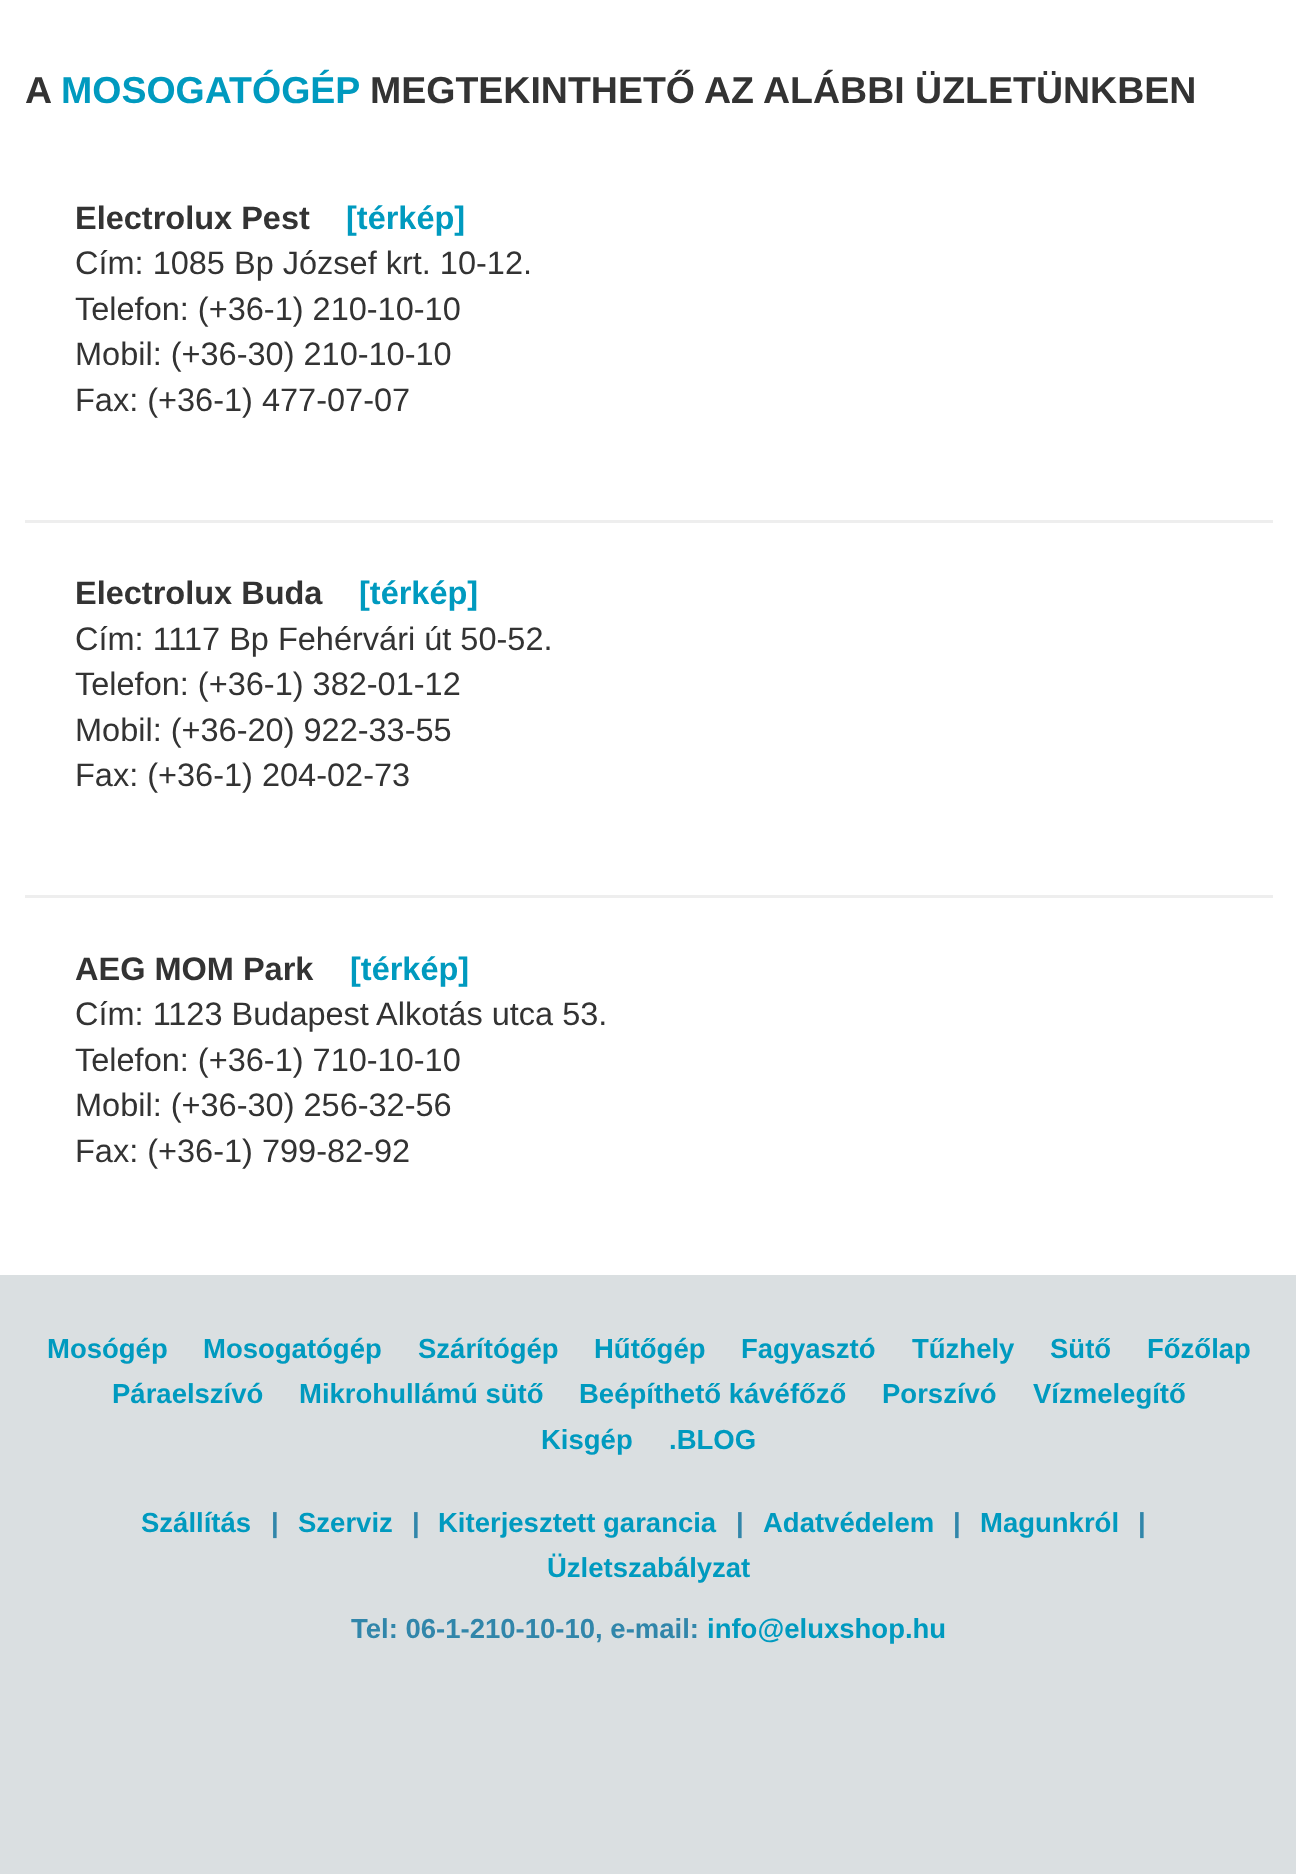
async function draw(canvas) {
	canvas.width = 1296;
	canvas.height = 1874;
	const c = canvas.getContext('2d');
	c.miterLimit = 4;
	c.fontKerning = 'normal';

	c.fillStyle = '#fff';
	c.fillRect(0, 0, 1296, 1874);
	c.font = 'bold 37.5px Liberation Sans';
	c.fillStyle = '#333';
	c.fillText('A', 25, 103);
	c.fillStyle = '#009abf';
	c.fillText('MOSOGATÓGÉP', 61, 103);
	c.fillStyle = '#333';
	c.fillText('MEGTEKINTHETŐ AZ ALÁBBI ÜZLETÜNKBEN', 370, 103);
	c.fillStyle = '#eee';
	c.fillRect(25, 520, 1248, 3);
	c.font = 'bold 32.5px Liberation Sans';
	c.fillStyle = '#333';
	c.fillText('Electrolux Pest', 75, 229);
	c.fillStyle = '#009abf';
	c.fillText('[térkép]', 346, 229);
	c.font = '32.5px Liberation Sans';
	c.fillStyle = '#333';
	for (const [text, x, y] of [
		['Cím: 1085 Bp József krt. 10-12.', 75, 274],
		['Telefon: (+36-1) 210-10-10', 75, 320],
		['Mobil: (+36-30) 210-10-10', 75, 365],
		['Fax: (+36-1) 477-07-07', 75, 411],
	]) {
		c.fillText(text, x, y);
	}
	c.fillStyle = '#eee';
	c.fillRect(25, 895, 1248, 3);
	c.font = 'bold 32.5px Liberation Sans';
	c.fillStyle = '#333';
	c.fillText('Electrolux Buda', 75, 604);
	c.fillStyle = '#009abf';
	c.fillText('[térkép]', 359, 604);
	c.font = '32.5px Liberation Sans';
	c.fillStyle = '#333';
	for (const [text, x, y] of [
		['Cím: 1117 Bp Fehérvári út 50-52.', 75, 650],
		['Telefon: (+36-1) 382-01-12', 75, 695],
		['Mobil: (+36-20) 922-33-55', 75, 741],
		['Fax: (+36-1) 204-02-73', 75, 786],
	]) {
		c.fillText(text, x, y);
	}
	c.font = 'bold 32.5px Liberation Sans';
	c.fillText('AEG MOM Park', 75, 980);
	c.fillStyle = '#009abf';
	c.fillText('[térkép]', 350, 980);
	c.font = '32.5px Liberation Sans';
	c.fillStyle = '#333';
	for (const [text, x, y] of [
		['Cím: 1123 Budapest Alkotás utca 53.', 75, 1025],
		['Telefon: (+36-1) 710-10-10', 75, 1071],
		['Mobil: (+36-30) 256-32-56', 75, 1116],
		['Fax: (+36-1) 799-82-92', 75, 1162],
	]) {
		c.fillText(text, x, y);
	}
	c.fillStyle = '#dadfe1';
	c.fillRect(0, 1275, 1296, 599);
	c.font = 'bold 27.5px Liberation Sans';
	c.fillStyle = '#009abf';
	for (const [text, x, y] of [
		['Mosógép', 47, 1358],
		['Mosogatógép', 203, 1358],
		['Szárítógép', 418, 1358],
		['Hűtőgép', 594, 1358],
		['Fagyasztó', 741, 1358],
		['Tűzhely', 912, 1358],
		['Sütő', 1050, 1358],
		['Főzőlap', 1147, 1358],
		['Páraelszívó', 112, 1403],
		['Mikrohullámú sütő', 299, 1403],
		['Beépíthető kávéfőző', 579, 1403],
		['Porszívó', 882, 1403],
		['Vízmelegítő', 1033, 1403],
		['Kisgép', 541, 1449],
		['.BLOG', 669, 1449],
		['Szállítás', 141, 1532],
	]) {
		c.fillText(text, x, y);
	}
	c.fillStyle = '#3186aa';
	c.fillText('|', 271, 1532);
	c.fillStyle = '#009abf';
	c.fillText('Szerviz', 298, 1532);
	c.fillStyle = '#3186aa';
	c.fillText('|', 412, 1532);
	c.fillStyle = '#009abf';
	c.fillText('Kiterjesztett garancia', 438, 1532);
	c.fillStyle = '#3186aa';
	c.fillText('|', 736, 1532);
	c.fillStyle = '#009abf';
	c.fillText('Adatvédelem', 763, 1532);
	c.fillStyle = '#3186aa';
	c.fillText('|', 953, 1532);
	c.fillStyle = '#009abf';
	c.fillText('Magunkról', 980, 1532);
	c.fillStyle = '#3186aa';
	c.fillText('|', 1138, 1532);
	c.fillStyle = '#009abf';
	c.fillText('Üzletszabályzat', 547, 1577);
	c.fillStyle = '#3186aa';
	c.fillText('Tel: 06-1-210-10-10, e-mail:', 351, 1638);
	c.fillStyle = '#009abf';
	c.fillText('info@eluxshop.hu', 707, 1638);
}

draw(document.querySelector('canvas'));
